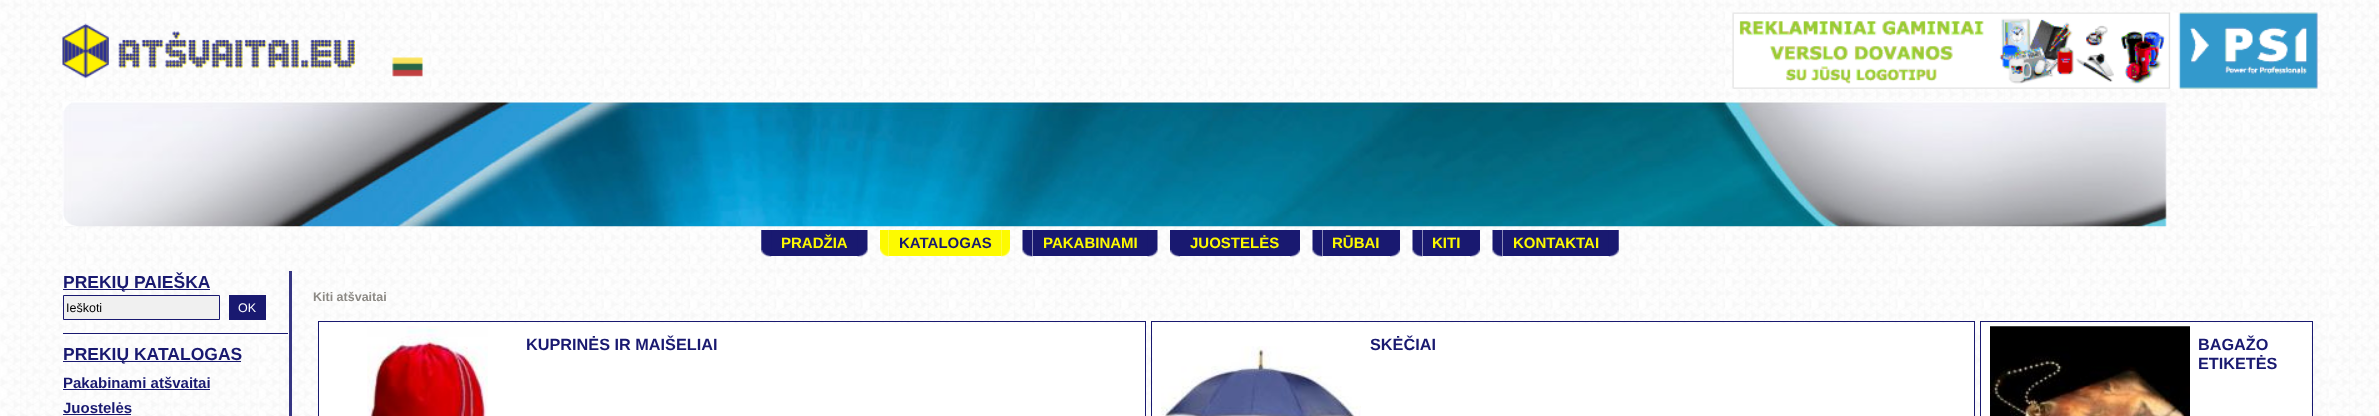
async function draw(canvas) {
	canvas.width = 2379;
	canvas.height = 416;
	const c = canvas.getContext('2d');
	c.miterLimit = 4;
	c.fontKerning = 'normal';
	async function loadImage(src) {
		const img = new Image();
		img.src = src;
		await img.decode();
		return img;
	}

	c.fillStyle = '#fff';
	c.fillRect(0, 0, 2379, 416);
	c.drawImage(await loadImage('img1.png'), 0, 0, 2379, 416);
	c.drawImage(await loadImage('img2.png'), 62, 23, 293, 56);
	c.drawImage(await loadImage('img3.png'), 392, 57, 31, 20);
	c.drawImage(await loadImage('img4.png'), 1732, 12, 586, 77);
	c.drawImage(await loadImage('img5.png'), 62, 101, 2105, 126);
	c.drawImage(await loadImage('img6.png'), 62, 102, 9, 9);
	c.drawImage(await loadImage('img7.png'), 2313, 101, 5, 8);
	c.drawImage(await loadImage('img8.png'), 63, 216, 13, 10);
	c.drawImage(await loadImage('img9.png'), 2308, 215, 9, 11);
	c.fillStyle = '#191970';
	c.fillRect(771, 230, 87, 26);
	c.drawImage(await loadImage('img10.png'), 761, 230, 11, 27);
	c.font = 'bold 15px Liberation Sans';
	c.fillStyle = '#fdfa00';
	c.fillText('PRADŽIA', 781, 248);
	c.drawImage(await loadImage('img11.png'), 857, 230, 11, 27);
	c.drawImage(await loadImage('img12.png'), 880, 230, 9, 27);
	c.fillRect(889, 230, 112, 26);
	c.fillStyle = '#191970';
	c.fillText('KATALOGAS', 899, 248);
	c.drawImage(await loadImage('img13.png'), 1001, 230, 9, 27);
	c.drawImage(await loadImage('img14.png'), 1022, 230, 11, 27);
	c.fillRect(1033, 230, 115, 26);
	c.fillStyle = '#fdfa00';
	c.fillText('PAKABINAMI', 1043, 248);
	c.drawImage(await loadImage('img15.png'), 1147, 230, 11, 27);
	c.drawImage(await loadImage('img16.png'), 1170, 230, 10, 27);
	c.fillStyle = '#191970';
	c.fillRect(1180, 230, 110, 26);
	c.fillStyle = '#fdfa00';
	c.fillText('JUOSTELĖS', 1190, 248);
	c.drawImage(await loadImage('img17.png'), 1290, 230, 10, 27);
	c.drawImage(await loadImage('img18.png'), 1312, 230, 11, 27);
	c.fillStyle = '#191970';
	c.fillRect(1323, 230, 67, 26);
	c.fillStyle = '#fdfa00';
	c.fillText('RŪBAI', 1332, 248);
	c.drawImage(await loadImage('img19.png'), 1390, 230, 10, 27);
	c.drawImage(await loadImage('img20.png'), 1412, 230, 11, 27);
	c.fillStyle = '#191970';
	c.fillRect(1423, 230, 47, 26);
	c.fillStyle = '#fdfa00';
	c.fillText('KITI', 1432, 248);
	c.drawImage(await loadImage('img21.png'), 1470, 230, 10, 27);
	c.drawImage(await loadImage('img22.png'), 1492, 230, 11, 27);
	c.fillStyle = '#191970';
	c.fillRect(1503, 230, 106, 26);
	c.fillStyle = '#fdfa00';
	c.fillText('KONTAKTAI', 1513, 248);
	c.drawImage(await loadImage('img23.png'), 1608, 230, 11, 27);
	c.fillStyle = '#191970';
	c.fillRect(63, 289, 147, 1);
	c.font = 'bold 17.5px Liberation Sans';
	c.fillText('PREKIŲ PAIEŠKA', 63, 288);
	c.fillStyle = '#f0f0f0';
	c.beginPath();
	c.rect(63.5, 295.5, 156, 24);
	c.fill();
	c.strokeStyle = '#191970';
	c.stroke();
	c.font = '12.5px Liberation Sans';
	c.fillStyle = '#000';
	c.fillText('Ieškoti', 66, 312);
	c.fillStyle = '#191970';
	c.fillRect(229, 295, 37, 25);
	c.fillStyle = '#fff';
	c.fillText('OK', 238, 312);
	for (const [x, y, w, h, color] of [
		[63, 334, 225, 2, '#fff'],
		[63, 333, 225, 1, '#191970'],
		[63, 361, 178, 1, '#191970'],
	]) {
		c.fillStyle = color;
		c.fillRect(x, y, w, h);
	}
	c.font = 'bold 17.5px Liberation Sans';
	c.fillText('PREKIŲ KATALOGAS', 63, 360);
	c.font = 'bold 15px Liberation Sans';
	c.fillText('Pakabinami atšvaitai', 63, 388);
	c.fillRect(63, 389, 147, 1);
	c.fillText('Juostelės', 63, 413);
	c.fillRect(63, 414, 68, 1);
	c.fillStyle = '#181870de';
	c.fillRect(289, 271, 3, 145);
	c.font = 'bold 12.5px Liberation Sans';
	c.fillStyle = '#8c8984';
	c.fillText('Kiti atšvaitai', 313, 301);
	c.strokeRect(318.5, 321.5, 827, 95);
	c.fillStyle = '#fff';
	c.fillRect(319, 323, 826, 93);
	c.drawImage(await loadImage('img24.png'), 367, 326, 121, 90);
	c.font = 'bold 16.25px Liberation Sans';
	c.fillStyle = '#191970';
	c.fillText('KUPRINĖS IR MAIŠELIAI', 526, 350);
	c.strokeRect(1151.5, 321.5, 823, 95);
	c.fillStyle = '#fff';
	c.fillRect(1153, 323, 821, 93);
	c.fillStyle = '#191970';
	c.fillText('SKĖČIAI', 1370, 350);
	c.drawImage(await loadImage('img25.png'), 1161, 346, 200, 70);
	c.strokeRect(1980.5, 321.5, 332, 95);
	c.fillStyle = '#fff';
	c.fillRect(1981, 323, 330, 93);
	c.drawImage(await loadImage('img26.png'), 1990, 326, 200, 90);
	c.fillStyle = '#191970';
	c.fillText('BAGAŽO', 2198, 350);
	c.fillText('ETIKETĖS', 2198, 369);
}

draw(document.querySelector('canvas'));
